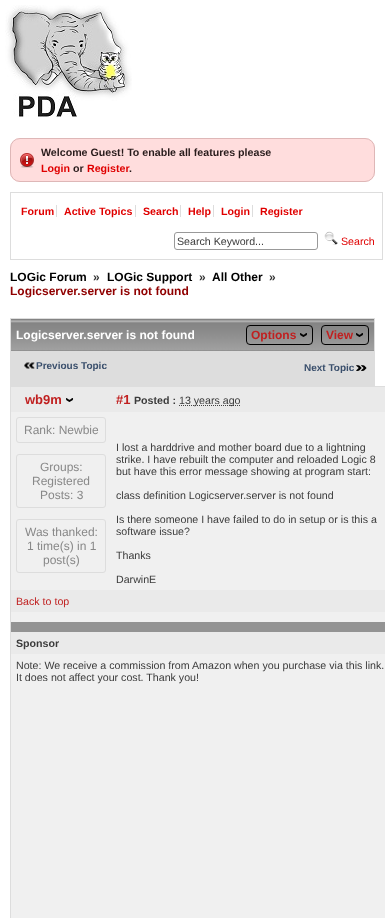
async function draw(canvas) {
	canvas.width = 385;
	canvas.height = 918;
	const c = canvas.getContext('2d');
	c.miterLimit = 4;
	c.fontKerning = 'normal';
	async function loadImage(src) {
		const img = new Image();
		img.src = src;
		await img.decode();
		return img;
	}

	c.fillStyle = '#fff';
	c.fillRect(0, 0, 385, 918);
	c.drawImage(await loadImage('img1.png'), 5, 5, 127, 112);
	c.fillStyle = '#fdd';
	c.beginPath();
	c.roundRect(10, 138, 365, 44, 10);
	c.fill();
	c.drawImage(await loadImage('img2.png'), 20, 153, 14, 15);
	c.beginPath();
	c.roundRect(10.5, 138.5, 364, 43, 9.5);
	c.strokeStyle = '#deb7b7';
	c.stroke();
	c.font = 'bold 10.65px Liberation Sans';
	c.fillStyle = '#281b1b';
	c.fillText('Welcome Guest! To enable all features please', 41, 156);
	c.fillStyle = '#e00000';
	c.fillText('Login', 41, 172);
	c.fillStyle = '#281b1b';
	c.fillText('or', 73, 172);
	c.fillStyle = '#e00000';
	c.fillText('Register', 87, 172);
	c.fillStyle = '#281b1b';
	c.fillText('.', 129, 172);
	c.strokeStyle = '#ddd';
	c.strokeRect(10.5, 192.5, 372, 67);
	c.fillStyle = '#e00000';
	c.fillText('Forum', 21, 215);
	c.fillText('Active Topics', 64, 215);
	c.fillStyle = '#ddd';
	c.fillRect(56, 205, 1, 12);
	c.fillStyle = '#e00000';
	c.fillText('Search', 143, 215);
	c.fillStyle = '#ddd';
	c.fillRect(135, 205, 1, 12);
	c.fillStyle = '#e00000';
	c.fillText('Help', 188, 215);
	c.fillStyle = '#ddd';
	c.fillRect(180, 205, 1, 12);
	c.fillStyle = '#e00000';
	c.fillText('Login', 221, 215);
	c.fillStyle = '#ddd';
	c.fillRect(213, 205, 1, 12);
	c.fillStyle = '#e00000';
	c.fillText('Register', 260, 215);
	c.fillStyle = '#ddd';
	c.fillRect(252, 205, 1, 12);
	c.beginPath();
	c.roundRect(174.5, 232.5, 143, 17, 2.5);
	c.strokeStyle = '#999';
	c.stroke();
	c.font = '10.65px Liberation Sans';
	c.fillStyle = '#3b3b3b';
	c.fillText('Search Keyword...', 177, 245);
	c.drawImage(await loadImage('img3.png'), 324, 231, 14, 14);
	c.fillStyle = '#e00000';
	c.fillText('Search', 341, 245);
	c.font = 'bold 12px Liberation Sans';
	c.fillStyle = '#000';
	c.fillText('LOGic Forum', 10, 281);
	c.fillStyle = '#333';
	c.fillText('»', 93, 281);
	c.fillStyle = '#000';
	c.fillText('LOGic Support', 107, 281);
	c.fillStyle = '#333';
	c.fillText('»', 199, 281);
	c.fillStyle = '#000';
	c.fillText('All Other', 212, 281);
	c.fillStyle = '#333';
	c.fillText('»', 269, 281);
	c.fillStyle = '#900000';
	c.fillText('Logicserver.server is not found', 10, 295);
	for (const [x, y, w, h, color] of [
		[10, 318, 365, 1, '#ddd'],
		[374, 318, 1, 68, '#ddd'],
		[10, 385, 365, 1, '#ddd'],
		[10, 318, 1, 68, '#ddd'],
	]) {
		c.fillStyle = color;
		c.fillRect(x, y, w, h);
	}
	c.drawImage(await loadImage('img4.png'), 11, 319, 363, 32);
	c.fillStyle = '#fff';
	c.fillText('Logicserver.server is not found', 16, 339);
	c.drawImage(await loadImage('img5.png'), 300, 333, 7, 4);
	c.beginPath();
	c.roundRect(246.5, 325.5, 66, 19, 3.5);
	c.strokeStyle = '#000';
	c.stroke();
	c.fillStyle = '#c02020';
	c.fillText('Options', 251, 339);
	c.drawImage(await loadImage('img6.png'), 356, 333, 7, 4);
	c.beginPath();
	c.roundRect(321.5, 325.5, 47, 19, 3.5);
	c.stroke();
	c.fillText('View', 326, 339);
	c.fillStyle = '#ddd';
	c.fillRect(11, 351, 363, 34);
	c.drawImage(await loadImage('img7.png'), 24, 362, 11, 7);
	c.font = 'bold 10px Liberation Sans';
	c.fillStyle = '#3a4f6c';
	c.fillText('Previous Topic', 36, 369);
	c.drawImage(await loadImage('img8.png'), 356, 365, 11, 6);
	c.fillText('Next Topic', 304, 371);
	for (const [x, y, w, h, color] of [
		[10, 386, 375, 1, '#ddd'],
		[10, 386, 1, 532, '#ddd'],
		[11, 387, 374, 25, '#eaeaea'],
	]) {
		c.fillStyle = color;
		c.fillRect(x, y, w, h);
	}
	c.font = 'bold 13px Liberation Sans';
	c.fillStyle = '#c02020';
	c.fillText('wb9m', 25, 404);
	c.drawImage(await loadImage('img9.png'), 66, 398, 8, 4);
	c.fillText('#1', 116, 404);
	c.font = 'bold 10.65px Liberation Sans';
	c.fillStyle = '#3b3b3b';
	c.fillText('Posted :', 134, 404);
	c.beginPath();
	c.moveTo(179, 405.5);
	c.lineTo(241, 405.5);
	c.strokeStyle = '#404040';
	c.setLineDash([1, 1]);
	c.stroke();
	c.font = '10.65px Liberation Sans';
	c.fillText('13 years ago', 179, 404);
	c.fillStyle = '#f0f0f0';
	c.fillRect(11, 412, 374, 178);
	c.beginPath();
	c.roundRect(16.5, 417.5, 89, 25, 2.5);
	c.strokeStyle = '#ddd';
	c.setLineDash([]);
	c.stroke();
	c.font = '12px Liberation Sans';
	c.fillStyle = '#888';
	c.fillText('Rank: Newbie', 24, 434);
	c.beginPath();
	c.roundRect(16.5, 454.5, 89, 53, 2.5);
	c.stroke();
	for (const [text, x, y] of [
		['Groups:', 40, 471],
		['Registered', 32, 485],
		['Posts: 3', 40, 499],
	]) {
		c.fillText(text, x, y);
	}
	c.beginPath();
	c.roundRect(16.5, 519.5, 89, 53, 2.5);
	c.stroke();
	for (const [text, x, y] of [
		['Was thanked:', 25, 536],
		['1 time(s) in 1', 27, 550],
		['post(s)', 43, 564],
	]) {
		c.fillText(text, x, y);
	}
	c.font = '10.65px Liberation Sans';
	c.fillStyle = '#3b3b3b';
	for (const [text, x, y] of [
		['I lost a harddrive and mother board due to a lightning', 116, 451],
		['strike. I have rebuilt the computer and reloaded Logic 8', 116, 463],
		['but have this error message showing at program start:', 116, 475],
		['class definition Logicserver.server is not found', 116, 499],
		['Is there someone I have failed to do in setup or is this a', 116, 523],
		['software issue?', 116, 535],
		['Thanks', 116, 559],
		['DarwinE', 116, 583],
	]) {
		c.fillText(text, x, y);
	}
	c.fillStyle = '#eaeaea';
	c.fillRect(11, 590, 374, 22);
	c.fillStyle = '#c02020';
	c.fillText('Back to top', 16, 605);
	for (const [x, y, w, h, color] of [
		[11, 612, 374, 10, '#f0f0f0'],
		[11, 622, 374, 10, '#939393'],
		[11, 632, 374, 22, '#eaeaea'],
	]) {
		c.fillStyle = color;
		c.fillRect(x, y, w, h);
	}
	c.font = 'bold 10.65px Liberation Sans';
	c.fillStyle = '#3b3b3b';
	c.fillText('Sponsor', 16, 647);
	c.fillStyle = '#f0f0f0';
	c.fillRect(11, 654, 374, 264);
	c.font = '10.65px Liberation Sans';
	c.fillStyle = '#3b3b3b';
	c.fillText('Note: We receive a commission from Amazon when you purchase via this link.', 16, 669);
	c.fillText('It does not affect your cost. Thank you!', 16, 681);
}

draw(document.querySelector('canvas'));
